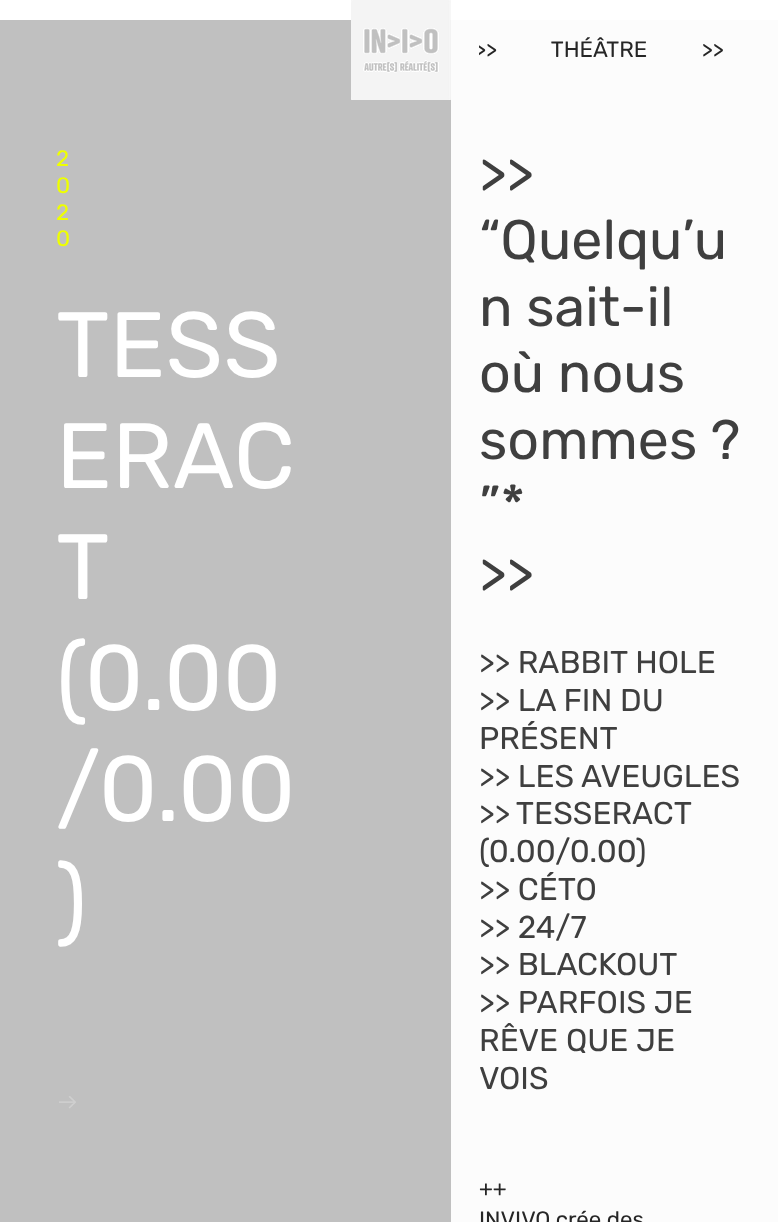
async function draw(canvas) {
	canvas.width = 778;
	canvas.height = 1222;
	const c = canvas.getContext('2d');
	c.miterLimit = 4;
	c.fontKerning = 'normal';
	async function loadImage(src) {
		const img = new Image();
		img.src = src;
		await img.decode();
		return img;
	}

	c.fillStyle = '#fff';
	c.fillRect(0, 0, 778, 1222);
	c.fillStyle = '#c0c0c0';
	c.fillRect(0, 20, 451, 1202);
	c.fillStyle = '#fcfcfc';
	c.fillRect(451, 20, 327, 1202);
	c.font = '22.25px Rubik';
	c.fillStyle = '#ef0';
	for (const [text, x, y] of [
		['2', 56, 166],
		['0', 56, 193],
		['2', 56, 220],
		['0', 56, 246],
	]) {
		c.fillText(text, x, y);
	}
	c.font = '92.5px Rubik';
	c.fillStyle = '#fff';
	for (const [text, x, y] of [
		['TESS', 56, 377],
		['ERAC', 56, 488],
		['T', 56, 599],
		['(0.00', 56, 710],
		['/0.00', 56, 821],
		[')', 56, 932],
	]) {
		c.fillText(text, x, y);
	}
	c.drawImage(await loadImage('img1.png'), 59, 1096, 17, 13);
	c.drawImage(await loadImage('img2.png'), 351, 0, 100, 100);
	c.save();
	c.beginPath();
	c.rect(479, 20, 271, 90);
	c.clip();
	c.font = '22.25px Rubik';
	c.fillStyle = '#262626';
	c.fillText('>>          THÉÂTRE          >>', 475, 57);
	c.restore();
	c.font = '55.5px Rubik';
	c.fillStyle = '#3f3f3f';
	for (const [text, x, y] of [
		['>>', 479, 192],
		['“Quelqu’u', 479, 259],
		['n sait-il', 479, 326],
		['où nous', 479, 392],
		['sommes ?', 479, 459],
		['”*', 479, 525],
		['>>', 479, 592],
	]) {
		c.fillText(text, x, y);
	}
	c.font = '31.5px Rubik';
	for (const [text, x, y] of [
		['>> RABBIT HOLE', 479, 673],
		['>> LA FIN DU', 479, 711],
		['PRÉSENT', 479, 749],
		['>> LES AVEUGLES', 479, 787],
	]) {
		c.fillText(text, x, y);
	}
	c.wordSpacing = '-1px';
	c.fillText('>> TESSERACT', 479, 824);
	c.wordSpacing = '0px';
	for (const [text, x, y] of [
		['(0.00/0.00)', 479, 862],
		['>> CÉTO', 479, 900],
		['>> 24/7', 479, 938],
		['>> BLACKOUT', 479, 975],
		['>> PARFOIS JE', 479, 1013],
		['RÊVE QUE JE', 479, 1051],
		['VOIS', 479, 1089],
	]) {
		c.fillText(text, x, y);
	}
	c.font = '22.25px Rubik';
	c.fillStyle = '#262626';
	c.fillText('++', 479, 1196);
	c.fillText('INVIVO crée des', 479, 1227);
}

draw(document.querySelector('canvas'));
